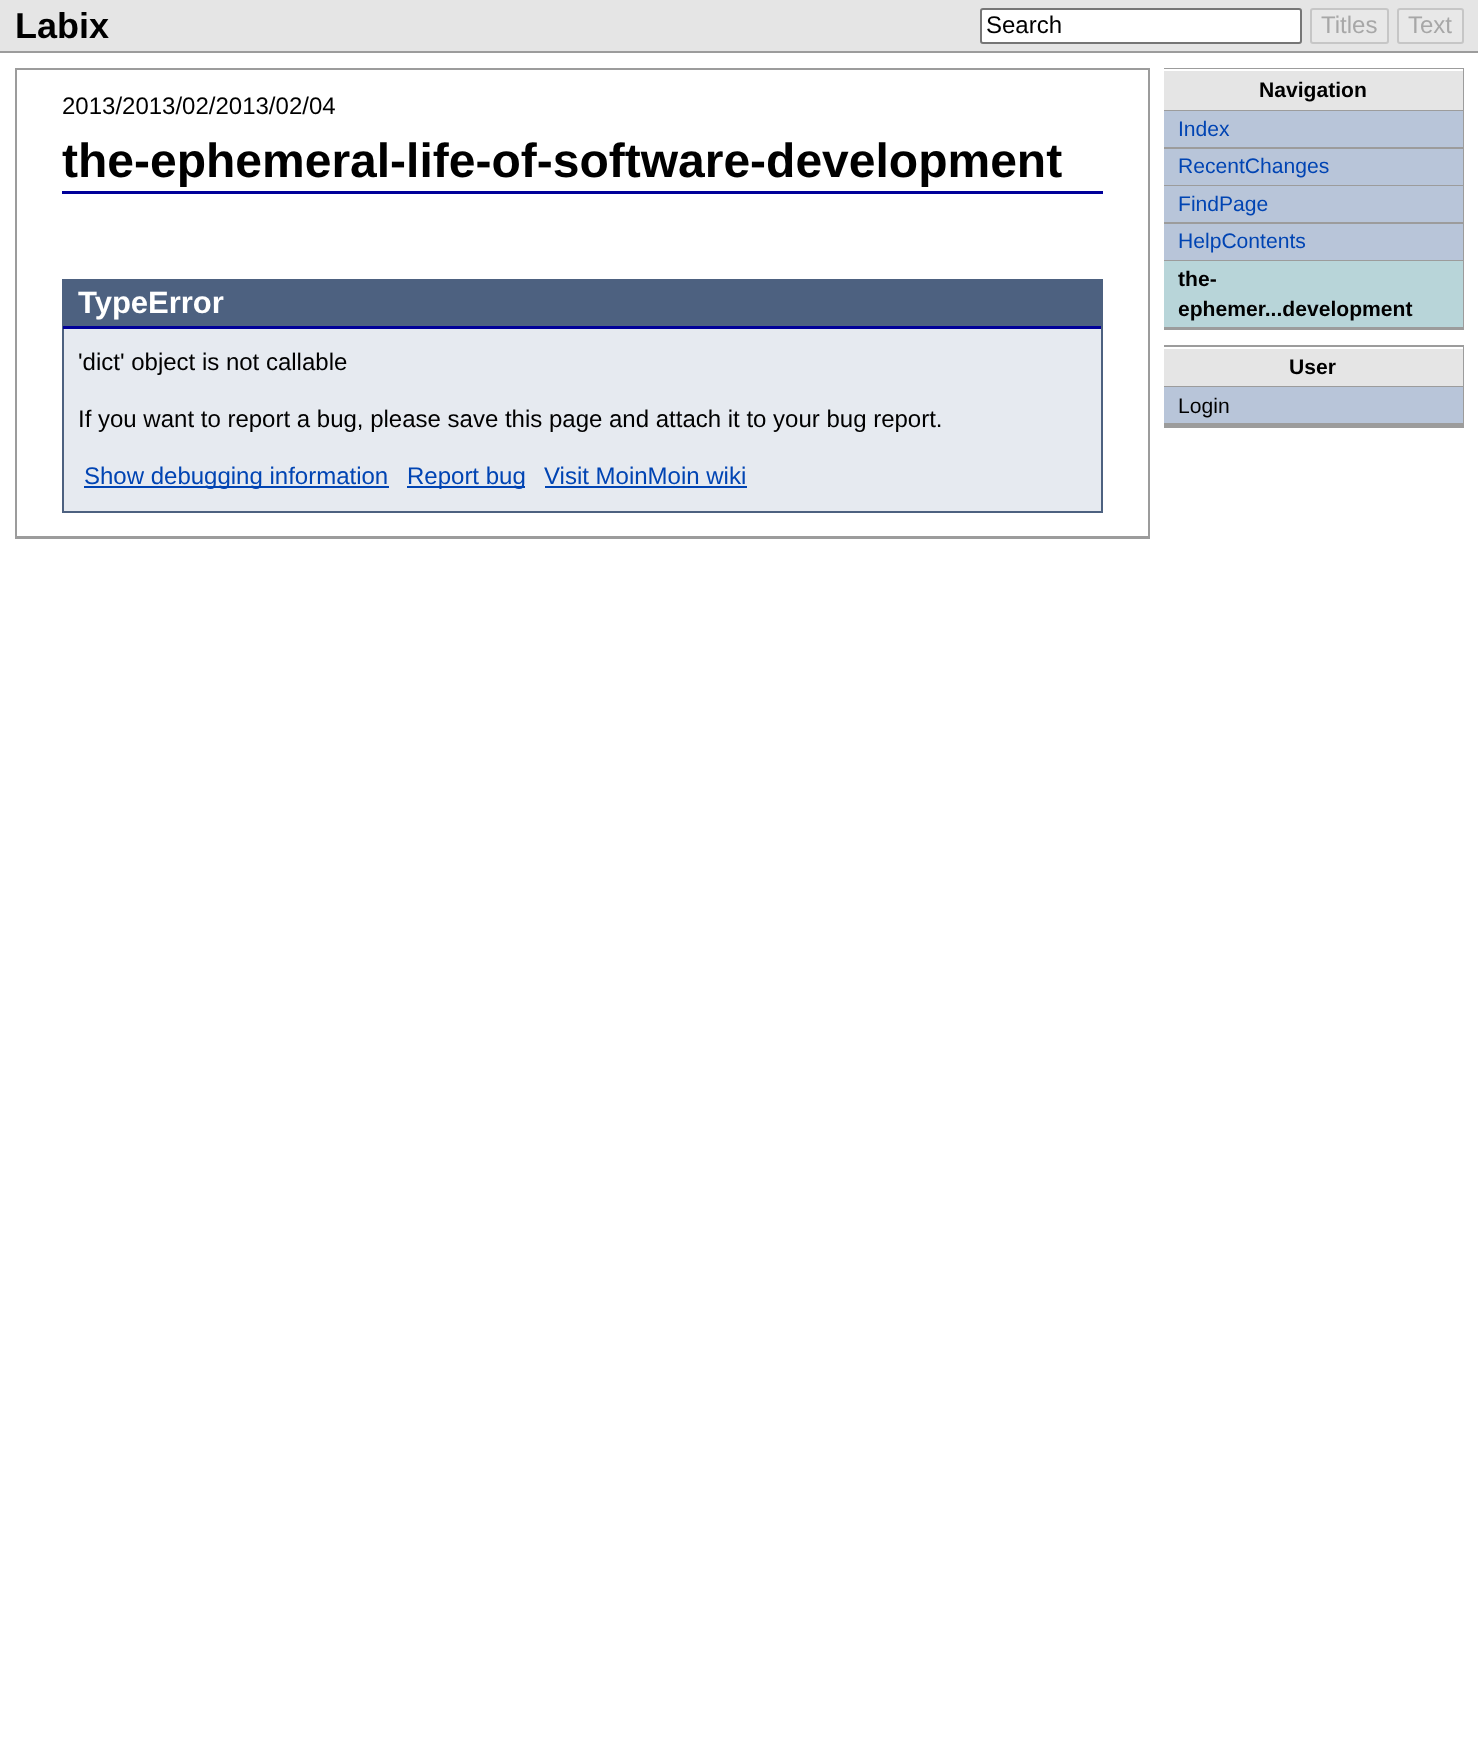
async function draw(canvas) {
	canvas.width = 1478;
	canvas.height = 1743;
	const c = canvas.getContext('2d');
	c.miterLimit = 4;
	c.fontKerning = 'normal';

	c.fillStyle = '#fff';
	c.fillRect(0, 0, 1478, 1743);
	c.fillStyle = '#e5e5e5';
	c.fillRect(0, 0, 1478, 51);
	c.fillStyle = '#9c9c9c';
	c.fillRect(0, 51, 1478, 2);
	c.font = 'bold 36px Liberation Sans';
	c.fillStyle = '#000';
	c.fillText('Labix', 15, 38);
	c.fillStyle = '#fff';
	c.beginPath();
	c.roundRect(981, 9, 320, 34, 2);
	c.fill();
	c.strokeStyle = '#767676';
	c.lineWidth = 2;
	c.stroke();
	c.font = '24px Liberation Sans';
	c.fillStyle = '#000';
	c.fillText('Search', 986, 33);
	c.fillStyle = '#e8e8e8';
	c.beginPath();
	c.roundRect(1311, 9, 77, 34, 2);
	c.fill();
	c.strokeStyle = '#c6c6c6';
	c.stroke();
	c.fillStyle = '#a7a7a7';
	c.fillText('Titles', 1321, 33);
	c.fillStyle = '#e8e8e8';
	c.beginPath();
	c.roundRect(1398, 9, 65, 34, 2);
	c.fill();
	c.stroke();
	c.fillStyle = '#a7a7a7';
	c.fillText('Text', 1408, 33);
	for (const [x, y, w, h, color] of [
		[15, 68, 1134, 2, '#9c9c9c'],
		[1148, 68, 2, 471, '#9c9c9c'],
		[15, 536, 1134, 3, '#9c9c9c'],
		[15, 68, 2, 471, '#9c9c9c'],
	]) {
		c.fillStyle = color;
		c.fillRect(x, y, w, h);
	}
	c.fillStyle = '#000';
	c.fillText('2013/2013/02/2013/02/04', 62, 114);
	c.fillStyle = '#009';
	c.fillRect(62, 191, 1041, 3);
	c.font = 'bold 48px Liberation Sans';
	c.fillStyle = '#000';
	c.fillText('the-ephemeral-life-of-software-development', 62, 177);
	c.fillStyle = '#e6eaf0';
	c.fillRect(64, 329, 1037, 182);
	c.strokeStyle = '#4d6180';
	c.strokeRect(63, 280, 1039, 232);
	c.fillStyle = '#4d6180';
	c.fillRect(64, 281, 1037, 45);
	c.fillStyle = '#009';
	c.fillRect(63, 326, 1038, 3);
	c.font = 'bold 31px Liberation Sans';
	c.fillStyle = '#fff';
	c.fillText('TypeError', 78, 313);
	c.font = '24px Liberation Sans';
	c.fillStyle = '#000';
	c.fillText('\'dict\' object is not callable', 78, 370);
	c.fillText('If you want to report a bug, please save this page and attach it to your bug report.', 78, 427);
	c.fillStyle = '#0044b3';
	c.fillRect(84, 486, 305, 2);
	c.fillText('Show debugging information', 84, 484);
	c.fillRect(407, 486, 118, 2);
	c.fillText('Report bug', 407, 484);
	c.fillText('Visit MoinMoin wiki', 544, 484);
	for (const [x, y, w, h, color] of [
		[545, 486, 202, 2, '#0044b3'],
		[1164, 149, 299, 111, '#b8c5d9'],
		[1164, 68, 300, 1, '#9c9c9c'],
		[1463, 68, 1, 262, '#9c9c9c'],
		[1164, 327, 300, 3, '#9c9c9c'],
		[1164, 71, 299, 39, '#e5e5e5'],
		[1164, 110, 299, 1, '#9c9c9c'],
	]) {
		c.fillStyle = color;
		c.fillRect(x, y, w, h);
	}
	c.font = 'bold 21.1px Liberation Sans';
	c.fillStyle = '#000';
	c.fillText('Navigation', 1259, 97);
	c.fillStyle = '#b8c5d9';
	c.fillRect(1164, 111, 299, 36);
	c.fillStyle = '#9c9c9c';
	c.fillRect(1164, 147, 299, 2);
	c.font = '21.1px Liberation Sans';
	c.fillStyle = '#0044b3';
	c.fillText('Index', 1178, 136);
	c.fillStyle = '#9c9c9c';
	c.fillRect(1164, 185, 299, 1);
	c.fillStyle = '#0044b3';
	c.fillText('RecentChanges', 1178, 173);
	c.fillStyle = '#9c9c9c';
	c.fillRect(1164, 222, 299, 2);
	c.fillStyle = '#0044b3';
	c.fillText('FindPage', 1178, 211);
	c.fillStyle = '#9c9c9c';
	c.fillRect(1164, 260, 299, 1);
	c.fillStyle = '#0044b3';
	c.fillText('HelpContents', 1178, 248);
	c.fillStyle = '#b8d5d9';
	c.fillRect(1164, 261, 299, 66);
	c.font = 'bold 21.1px Liberation Sans';
	c.fillStyle = '#000';
	c.fillText('the-', 1178, 286);
	c.fillText('ephemer...development', 1178, 316);
	for (const [x, y, w, h, color] of [
		[1164, 345, 300, 2, '#9c9c9c'],
		[1463, 345, 1, 83, '#9c9c9c'],
		[1164, 425, 300, 3, '#9c9c9c'],
		[1164, 349, 299, 37, '#e5e5e5'],
		[1164, 386, 299, 1, '#9c9c9c'],
	]) {
		c.fillStyle = color;
		c.fillRect(x, y, w, h);
	}
	c.fillStyle = '#000';
	c.fillText('User', 1289, 374);
	c.fillStyle = '#b8c5d9';
	c.fillRect(1164, 387, 299, 36);
	c.fillStyle = '#9c9c9c';
	c.fillRect(1164, 423, 299, 2);
	c.font = '21.1px Liberation Sans';
	c.fillStyle = '#000';
	c.fillText('Login', 1178, 413);
}

draw(document.querySelector('canvas'));
